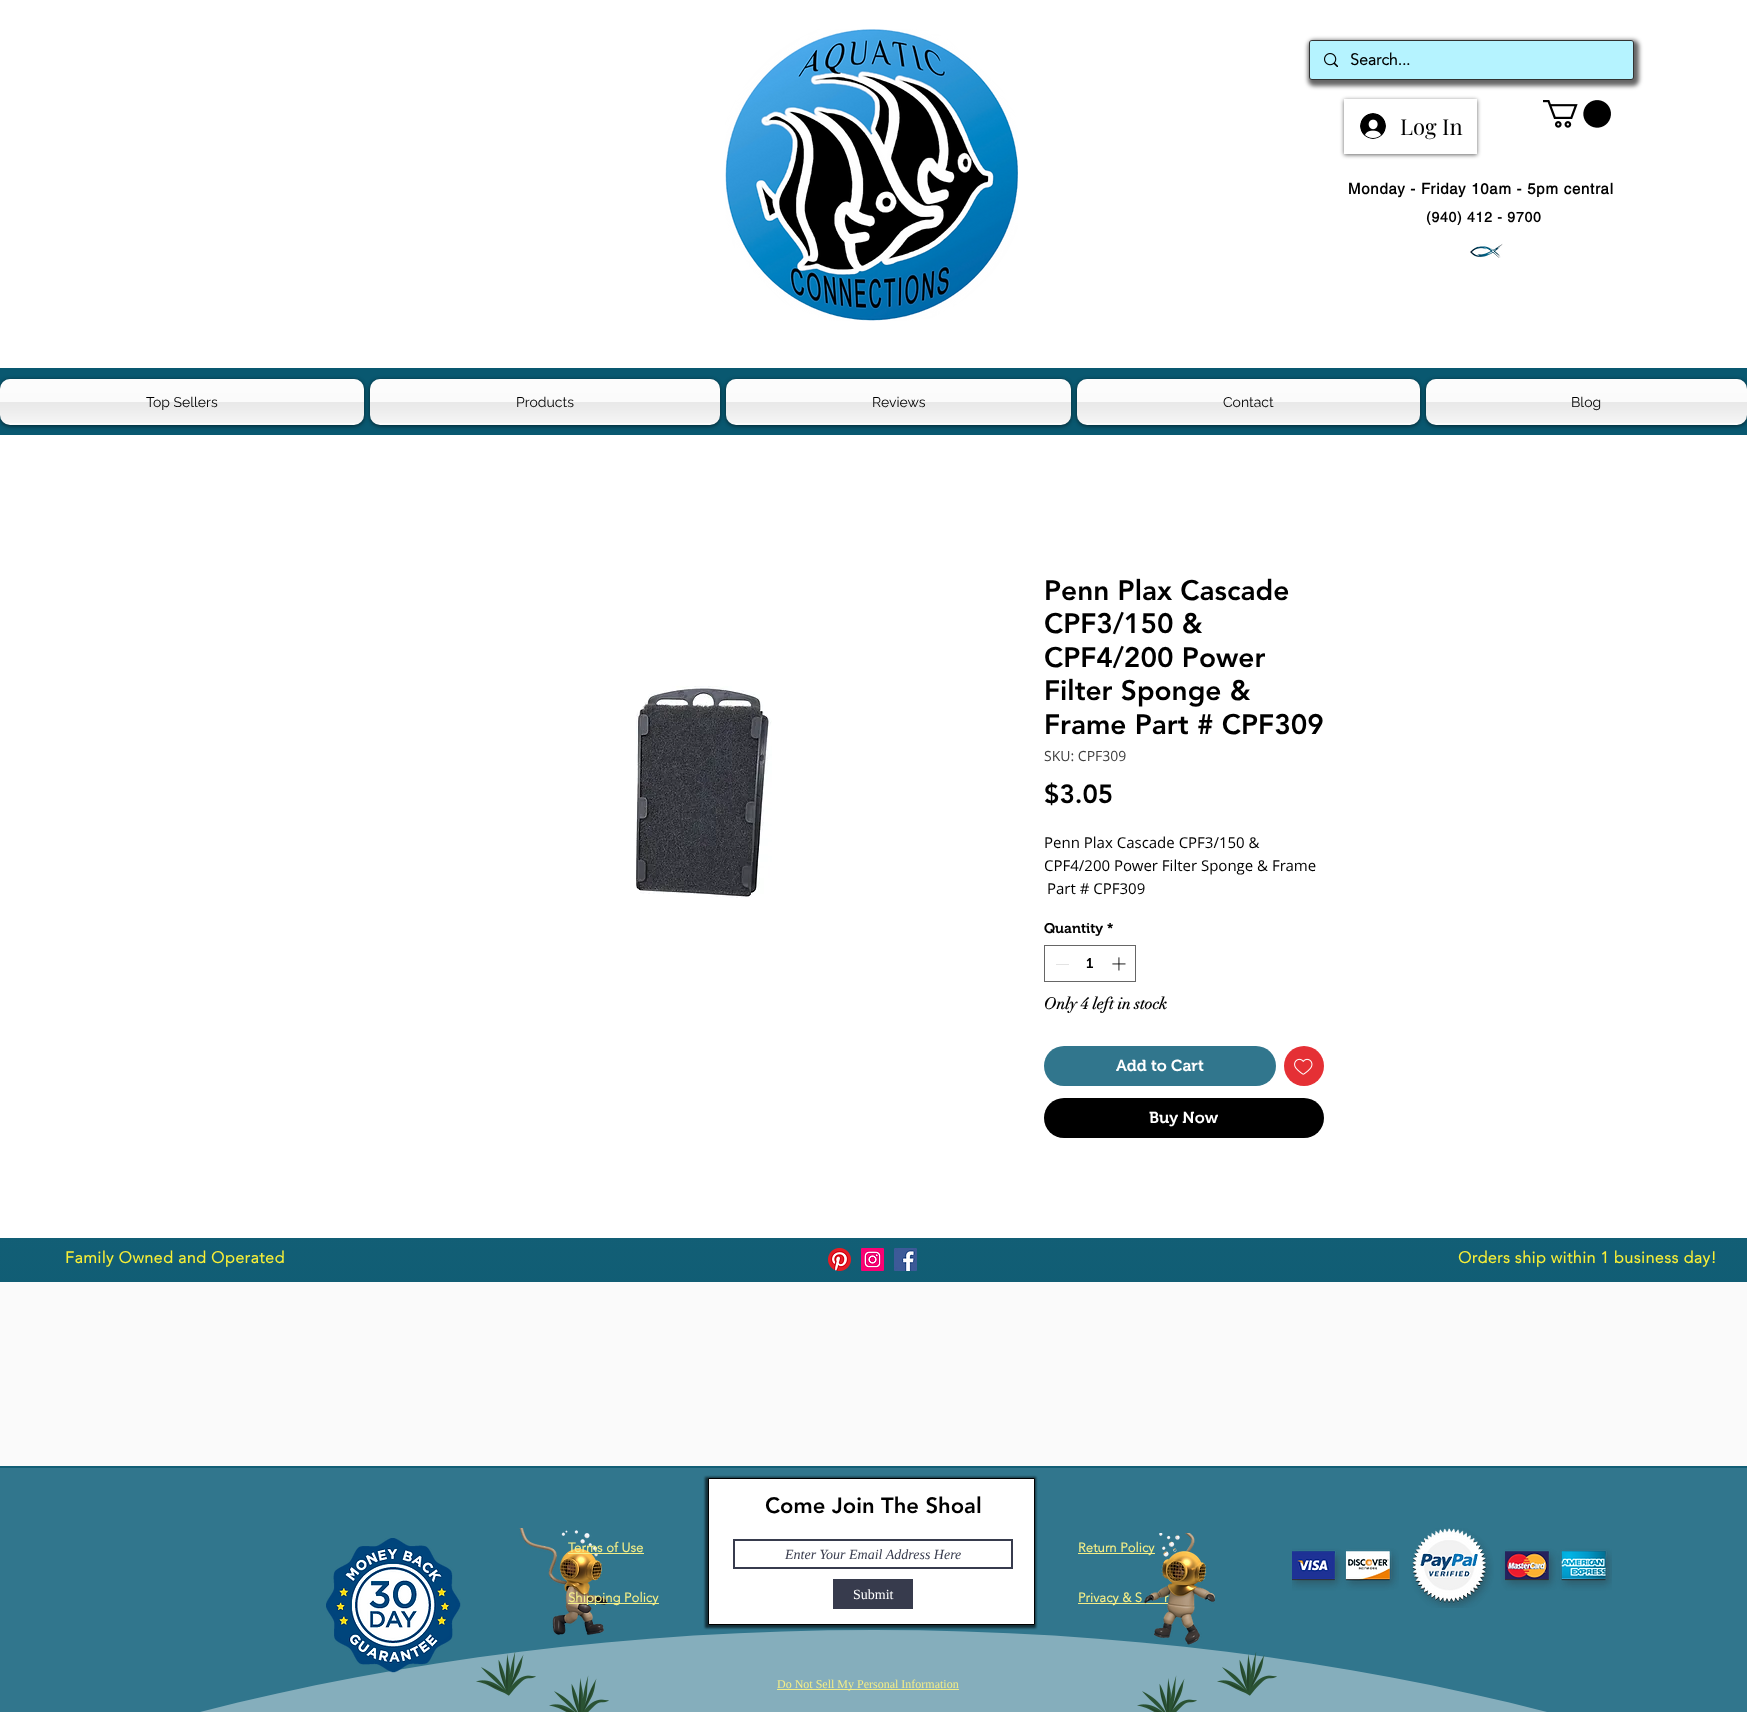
async function draw(canvas) {
	canvas.width = 1747;
	canvas.height = 1712;
	const c = canvas.getContext('2d');
	c.miterLimit = 4;
	c.fontKerning = 'normal';
	async function loadImage(src) {
		const img = new Image();
		img.src = src;
		await img.decode();
		return img;
	}
	let gradient;

	c.fillStyle = '#fff';
	c.fillRect(0, 0, 1747, 1712);
	c.drawImage(await loadImage('img1.png'), 725, 29, 293, 292);
	c.fillStyle = '#00000099';
	c.filter = 'blur(2px)';
	c.beginPath();
	c.roundRect(1308, 40, 331, 46, 6);
	c.fill();
	c.filter = 'none';
	c.beginPath();
	c.roundRect(1309.5, 40.5, 324, 39, 2.5);
	c.strokeStyle = '#323232';
	c.stroke();
	c.fillStyle = '#b5f3ff';
	c.beginPath();
	c.roundRect(1310, 41, 323, 38, 2);
	c.fill();
	c.drawImage(await loadImage('img2.png'), 1324, 53, 14, 14);
	c.font = 'bold 16px "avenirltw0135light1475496"';
	c.fillStyle = '#000';
	c.fillText('Search...', 1350, 65);
	c.save();
	c.beginPath();
	c.moveTo(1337, 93);
	c.lineTo(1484, 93);
	c.lineTo(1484, 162);
	c.lineTo(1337, 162);
	c.closePath();
	c.moveTo(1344, 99);
	c.lineTo(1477, 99);
	c.lineTo(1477, 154);
	c.lineTo(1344, 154);
	c.closePath();
	c.clip('evenodd');
	c.fillStyle = '#00000099';
	c.filter = 'blur(2px)';
	c.beginPath();
	c.rect(1344, 100, 133, 55);
	c.fill();
	c.filter = 'none';
	c.restore();
	c.drawImage(await loadImage('img3.png'), 1360, 113, 26, 26);
	c.font = '22px Playfair Display';
	c.fillText('Log In', 1400, 135);
	c.drawImage(await loadImage('img4.png'), 1543, 100, 68, 28);
	c.letterSpacing = '0.75px';
	c.font = 'bold 15px helvetica';
	c.fillText('Monday - Friday 10am - 5pm central', 1348, 194);
	c.font = 'bold 14px helvetica';
	c.fillText('(940) 412 - 9700', 1426, 222);
	c.drawImage(await loadImage('img5.png'), 1470, 243, 33, 15);
	gradient = c.createRadialGradient(874, 402, 0, 874, 402, 874);
	gradient.addColorStop(0, '#095870');
	gradient.addColorStop(0, '#31768d');
	gradient.addColorStop(0, '#095870');
	c.fillStyle = gradient;
	c.fillRect(0, 368, 1747, 67);
	c.fillStyle = '#00000099';
	c.filter = 'blur(2px)';
	c.beginPath();
	c.roundRect(0, 380, 364, 46, 10);
	c.fill();
	c.filter = 'none';
	c.fillStyle = '#fbfbfb';
	c.beginPath();
	c.roundRect(0, 379, 364, 46, 10);
	c.fill();
	c.drawImage(await loadImage('img6.png'), 0, 379, 364, 44);
	c.letterSpacing = '0px';
	c.font = '14px Raleway';
	c.fillStyle = '#000';
	c.fillText('Top Sellers', 146, 407);
	c.fillStyle = '#00000099';
	c.filter = 'blur(2px)';
	c.beginPath();
	c.roundRect(370, 380, 350, 46, 10);
	c.fill();
	c.filter = 'none';
	c.fillStyle = '#fbfbfb';
	c.beginPath();
	c.roundRect(370, 379, 350, 46, 10);
	c.fill();
	c.drawImage(await loadImage('img7.png'), 370, 379, 350, 44);
	c.fillStyle = '#000';
	c.fillText('Products', 516, 407);
	c.fillStyle = '#00000099';
	c.filter = 'blur(2px)';
	c.beginPath();
	c.roundRect(726, 380, 345, 46, 10);
	c.fill();
	c.filter = 'none';
	c.fillStyle = '#fbfbfb';
	c.beginPath();
	c.roundRect(726, 379, 345, 46, 10);
	c.fill();
	c.drawImage(await loadImage('img8.png'), 726, 379, 345, 44);
	c.fillStyle = '#000';
	c.fillText('Reviews', 872, 407);
	c.fillStyle = '#00000099';
	c.filter = 'blur(2px)';
	c.beginPath();
	c.roundRect(1077, 380, 343, 46, 10);
	c.fill();
	c.filter = 'none';
	c.fillStyle = '#fbfbfb';
	c.beginPath();
	c.roundRect(1077, 379, 343, 46, 10);
	c.fill();
	c.drawImage(await loadImage('img9.png'), 1077, 379, 343, 44);
	c.fillStyle = '#000';
	c.fillText('Contact', 1223, 407);
	c.fillStyle = '#00000099';
	c.filter = 'blur(2px)';
	c.beginPath();
	c.roundRect(1426, 380, 321, 46, 10);
	c.fill();
	c.filter = 'none';
	c.fillStyle = '#fbfbfb';
	c.beginPath();
	c.roundRect(1426, 379, 321, 46, 10);
	c.fill();
	c.drawImage(await loadImage('img10.png'), 1426, 379, 321, 44);
	c.fillStyle = '#000';
	c.fillText('Blog', 1571, 407);
	c.drawImage(await loadImage('img11.png'), 636, 686, 136, 212);
	c.font = '900 28px "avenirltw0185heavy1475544"';
	for (const [text, x, y] of [
		['Penn Plax Cascade', 1044, 600],
		['CPF3/150 &', 1044, 633],
		['CPF4/200 Power', 1044, 667],
		['Filter Sponge &', 1044, 700],
		['Frame Part # CPF309', 1044, 734],
	]) {
		c.fillText(text, x, y);
	}
	c.font = '14px Open Sans';
	c.fillStyle = '#404040';
	c.fillText('SKU: CPF309', 1044, 761);
	c.font = '900 26px "avenirltw0185heavy1475544"';
	c.fillStyle = '#000';
	c.fillText('$3.05', 1044, 803);
	c.font = '15px Open Sans';
	for (const [text, x, y] of [
		['Penn Plax Cascade CPF3/150 &', 1044, 848],
		['CPF4/200 Power Filter Sponge & Frame', 1044, 871],
		['Part # CPF309', 1047, 894],
	]) {
		c.fillText(text, x, y);
	}
	c.font = '600 14px "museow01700"';
	c.fillText('Quantity *', 1044, 933);
	c.strokeStyle = '#666';
	c.strokeRect(1044.5, 945.5, 91, 36);
	c.fillStyle = '#e3e3e3';
	c.fillRect(1056, 964, 13, 1);
	c.fillStyle = '#000';
	c.fillText('1', 1086, 968);
	c.drawImage(await loadImage('img12.png'), 1112, 957, 14, 14);
	c.font = 'bold 16px didot';
	c.fillText('Only 4 left in stock', 1044, 1009);
	c.fillStyle = '#31768d';
	c.beginPath();
	c.roundRect(1044, 1046, 232, 40, 20);
	c.fill();
	c.font = '600 16px "museow01700"';
	c.fillStyle = '#fff';
	c.fillText('Add to Cart', 1116, 1071);
	c.fillStyle = '#e53035';
	c.beginPath();
	c.arc(1304, 1066, 20, 0, 2 * Math.PI);
	c.fill();
	c.drawImage(await loadImage('img13.png'), 1294, 1058, 19, 17);
	c.fillStyle = '#000';
	c.beginPath();
	c.roundRect(1044, 1098, 280, 40, 20);
	c.fill();
	c.fillStyle = '#fff';
	c.fillText('Buy Now', 1149, 1123);
	c.fillStyle = '#095870';
	c.fillRect(0, 1238, 1747, 230);
	c.drawImage(await loadImage('img14.png'), 0, 1238, 1747, 230);
	gradient = c.createRadialGradient(874, 1238, 0, 874, 1238, 875);
	gradient.addColorStop(0, '#095870cc');
	gradient.addColorStop(0, '#095870d9');
	gradient.addColorStop(0.12, '#095870d9');
	c.fillStyle = gradient;
	c.fillRect(0, 1238, 1747, 44);
	c.letterSpacing = '0.5px';
	c.font = 'bold 16px "avenirltw0135light1475496"';
	c.fillStyle = '#f9ef37';
	c.fillText('Family Owned and Operated', 65, 1263);
	c.drawImage(await loadImage('img15.png'), 828, 1248, 23, 23);
	c.drawImage(await loadImage('img16.png'), 861, 1248, 23, 23);
	c.drawImage(await loadImage('img17.png'), 894, 1248, 23, 23);
	c.fillText('Orders ship within 1 business day!', 1458, 1263);
	c.fillStyle = '#fafafa';
	c.fillRect(0, 1282, 1747, 184);
	c.fillStyle = '#31768d';
	c.fillRect(0, 1468, 1747, 244);
	c.fillStyle = '#85aebc';
	c.beginPath();
	c.moveTo(1747, 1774);
	c.bezierCurveTo(1508, 1686, 1204, 1630, 874, 1630);
	c.bezierCurveTo(543, 1630, 239, 1686, 0, 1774);
	c.lineTo(0, 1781);
	c.lineTo(1747, 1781);
	c.closePath();
	c.fill();
	c.drawImage(await loadImage('img18.png'), 326, 1538, 135, 135);
	c.drawImage(await loadImage('img19.png'), 519, 1528, 89, 107);
	c.letterSpacing = '0.1px';
	c.font = 'bold 13px "avenirltw0135light1475496"';
	c.fillStyle = '#f3ed87';
	c.fillText('Terms of Use', 568, 1552);
	c.fillRect(568, 1553, 76, 1);
	c.fillStyle = '#00000099';
	c.filter = 'blur(1px)';
	c.beginPath();
	c.rect(705, 1477, 331, 151);
	c.fill();
	c.filter = 'none';
	c.fillStyle = '#fff';
	c.beginPath();
	c.rect(708.5, 1478.5, 326, 146);
	c.fill();
	c.strokeStyle = '#000';
	c.stroke();
	c.letterSpacing = '0px';
	c.font = '900 22px "avenirltw0185heavy1475544"';
	c.fillStyle = '#000';
	c.fillText('Come Join The Shoal', 765, 1513);
	c.strokeStyle = '#373b4d';
	c.lineWidth = 2;
	c.strokeRect(734, 1540, 278, 28);
	c.font = 'italic 14px Liberation Serif';
	c.fillStyle = '#373b4d';
	c.fillText('Enter Your Email Address Here', 785, 1559);
	c.fillRect(833, 1579, 80, 30);
	c.font = '14px Liberation Serif';
	c.fillStyle = '#fff';
	c.fillText('Submit', 853, 1599);
	c.fillStyle = '#f3ed87';
	c.fillRect(1078, 1553, 77, 1);
	c.letterSpacing = '0.1px';
	c.font = 'bold 13px "avenirltw0135light1475496"';
	c.fillText('Return Policy', 1078, 1552);
	c.fillRect(568, 1603, 91, 1);
	c.fillText('Shipping Policy', 568, 1602);
	c.fillRect(1078, 1603, 93, 1);
	c.fillText('Privacy & S', 1078, 1602);
	c.fillText('r', 1164, 1602);
	c.drawImage(await loadImage('img20.png'), 476, 1652, 60, 44);
	c.drawImage(await loadImage('img21.png'), 549, 1675, 60, 37);
	c.fillRect(777, 1689, 182, 1);
	c.letterSpacing = '0px';
	c.font = '12px Liberation Serif';
	c.fillText('Do Not Sell My Personal Information', 777, 1688);
	c.drawImage(await loadImage('img21.png'), 1137, 1675, 60, 37);
	c.drawImage(await loadImage('img22.png'), 1217, 1652, 60, 44);
	c.drawImage(await loadImage('img23.png'), 1144, 1533, 71, 112);
	c.drawImage(await loadImage('img24.png'), 1292, 1528, 320, 80);
}

draw(document.querySelector('canvas'));
